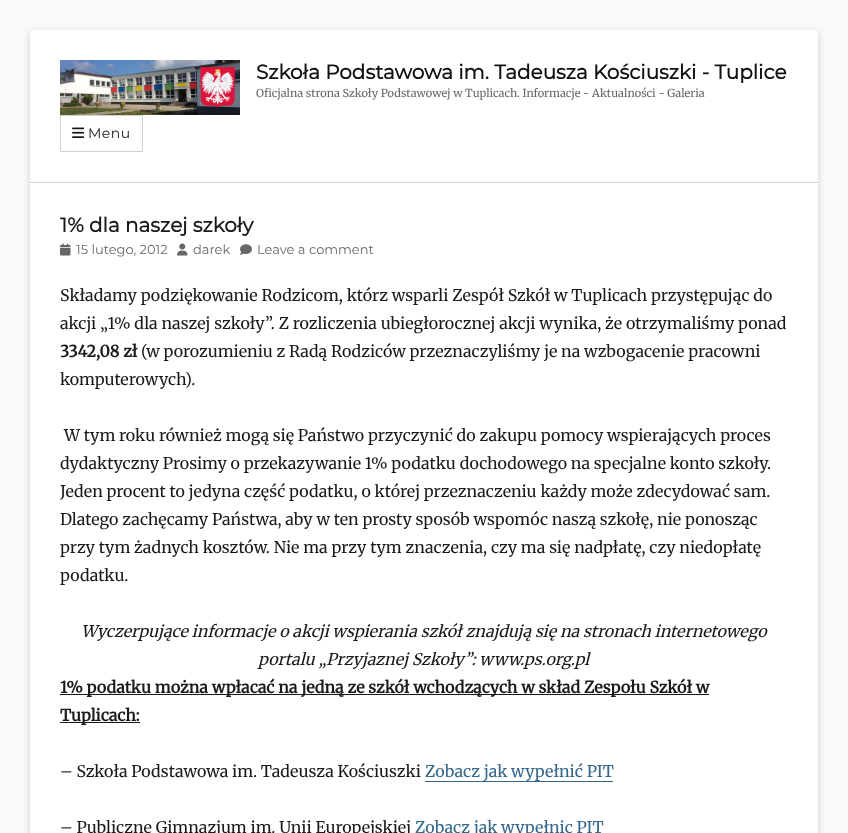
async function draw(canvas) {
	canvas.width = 848;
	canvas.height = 833;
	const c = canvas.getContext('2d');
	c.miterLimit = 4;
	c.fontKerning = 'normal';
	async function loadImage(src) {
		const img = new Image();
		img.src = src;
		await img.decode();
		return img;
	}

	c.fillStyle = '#f9f9f9';
	c.fillRect(0, 0, 848, 833);
	c.fillStyle = '#6464644d';
	c.filter = 'blur(3px)';
	c.beginPath();
	c.roundRect(30, 32, 788, 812, 2);
	c.fill();
	c.filter = 'none';
	c.fillStyle = '#fff';
	c.beginPath();
	c.roundRect(30, 30, 788, 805, 2);
	c.fill();
	c.fillStyle = '#d1d1d1';
	c.fillRect(30, 182, 788, 1);
	c.drawImage(await loadImage('img1.png'), 60, 60, 180, 55);
	c.font = 'bold 20px Montserrat';
	c.fillStyle = '#111';
	c.fillText('Szkoła Podstawowa im. Tadeusza Kościuszki - Tuplice', 256, 79);
	c.font = '300 11px Merriweather';
	c.fillStyle = '#686868';
	c.fillText('Oficjalna strona Szkoły Podstawowej w Tuplicach. Informacje - Aktualności - Galeria', 256, 97);
	c.strokeStyle = '#d1d1d1';
	c.strokeRect(60.5, 115.5, 82, 36);
	c.drawImage(await loadImage('img2.png'), 72, 127, 13, 11);
	c.letterSpacing = '0.5px';
	c.font = '100 14px Montserrat';
	c.fillStyle = '#1a1a1a';
	c.fillText('Menu', 88, 138);
	c.letterSpacing = '0px';
	c.font = 'bold 20px Montserrat';
	c.fillText('1% dla naszej szkoły', 60, 232);
	c.drawImage(await loadImage('img3.png'), 60, 243, 11, 13);
	c.font = '100 13px Montserrat';
	c.fillStyle = '#686868';
	c.fillText('15 lutego, 2012', 76, 254);
	c.drawImage(await loadImage('img4.png'), 177, 243, 11, 13);
	c.fillText('darek', 193, 254);
	c.drawImage(await loadImage('img5.png'), 240, 244, 12, 11);
	c.fillText('Leave a comment', 257, 254);
	c.font = '300 16px Merriweather';
	c.fillStyle = '#1a1a1a';
	c.fillText('Składamy podziękowanie Rodzicom, którz wsparli Zespół Szkół w Tuplicach przystępując do', 60, 301);
	c.fillText('akcji „1% dla naszej szkoły”. Z rozliczenia ubiegłorocznej akcji wynika, że otrzymaliśmy ponad', 60, 329);
	c.font = 'bold 16px Merriweather';
	c.fillText('3342,08 zł', 60, 357);
	c.font = '300 16px Merriweather';
	for (const [text, x, y] of [
		['(w porozumieniu z Radą Rodziców przeznaczyliśmy je na wzbogacenie pracowni', 141, 357],
		['komputerowych).', 60, 385],
		['W tym roku również mogą się Państwo przyczynić do zakupu pomocy wspierających proces', 64, 441],
		['dydaktyczny Prosimy o przekazywanie 1% podatku dochodowego na specjalne konto szkoły.', 60, 469],
		['Jeden procent to jedyna część podatku, o której przeznaczeniu każdy może zdecydować sam.', 60, 497],
		['Dlatego zachęcamy Państwa, aby w ten prosty sposób wspomóc naszą szkołę, nie ponosząc', 60, 525],
		['przy tym żadnych kosztów. Nie ma przy tym znaczenia, czy ma się nadpłatę, czy niedopłatę', 60, 553],
		['podatku.', 60, 581],
	]) {
		c.fillText(text, x, y);
	}
	c.font = 'italic 300 16px Merriweather';
	c.fillText('Wyczerpujące informacje o akcji wspierania szkół znajdują się na stronach internetowego', 81, 637);
	c.fillText('portalu „Przyjaznej Szkoły”: www.ps.org.pl', 258, 665);
	c.fillRect(60, 694, 649, 1);
	c.font = 'bold 16px Merriweather';
	c.fillText('1% podatku można wpłacać na jedną ze szkół wchodzących w skład Zespołu Szkół w', 60, 693);
	c.fillRect(60, 722, 80, 1);
	c.fillText('Tuplicach:', 60, 721);
	c.font = '300 16px Merriweather';
	c.fillText('– Szkoła Podstawowa im. Tadeusza Kościuszki', 60, 777);
	c.fillStyle = '#34678a';
	c.fillText('Zobacz jak wypełnić PIT', 425, 777);
	c.fillRect(425, 781, 188, 1);
	c.fillStyle = '#1a1a1a';
	c.fillText('– Publiczne Gimnazjum im. Unii Europejskiej', 60, 833);
	c.fillStyle = '#34678a';
	c.fillText('Zobacz jak wypełnic PIT', 415, 833);
}

draw(document.querySelector('canvas'));
